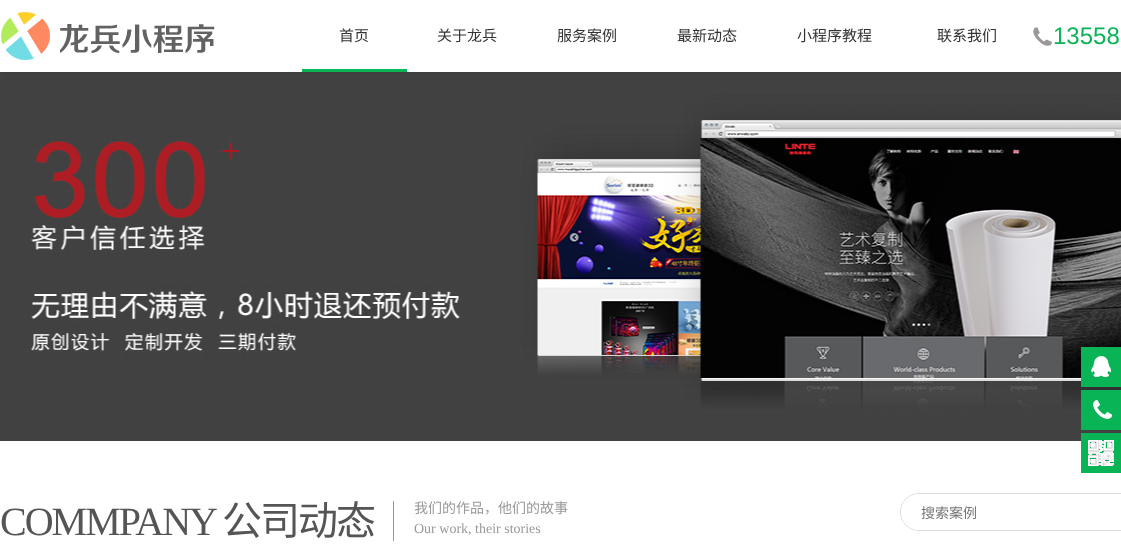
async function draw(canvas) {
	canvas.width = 1121;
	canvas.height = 560;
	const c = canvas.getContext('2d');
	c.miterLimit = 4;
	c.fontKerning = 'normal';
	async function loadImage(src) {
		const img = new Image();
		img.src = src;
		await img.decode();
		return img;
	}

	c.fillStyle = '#fff';
	c.fillRect(0, 0, 1121, 560);
	c.drawImage(await loadImage('img3.png'), 0, 72, 1121, 369);
	c.fillStyle = '#0000001a';
	c.filter = 'blur(1.5px)';
	c.beginPath();
	c.rect(0, 0, 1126, 72);
	c.fill();
	c.filter = 'none';
	c.fillStyle = '#fff';
	c.fillRect(0, 0, 1121, 72);
	c.drawImage(await loadImage('img1.png'), 1, 12, 214, 48);
	c.font = '15px Noto Sans CJK SC';
	c.fillStyle = '#333';
	for (const [text, x, y] of [
		['首页', 339, 41],
		['关于龙兵', 437, 41],
		['服务案例', 557, 41],
		['最新动态', 677, 41],
		['小程序教程', 797, 41],
		['联系我们', 937, 41],
	]) {
		c.fillText(text, x, y);
	}
	c.drawImage(await loadImage('img2.png'), 1033, 27, 19, 19);
	c.font = '24px Liberation Sans';
	c.fillStyle = '#09b456';
	c.fillText('13558', 1053, 44);
	c.fillRect(302, 69, 105, 3);
	c.fillRect(1081, 347, 40, 40);
	c.drawImage(await loadImage('img4.png'), 1091, 356, 20, 21);
	c.fillRect(1081, 390, 40, 40);
	c.drawImage(await loadImage('img5.png'), 1093, 400, 19, 19);
	c.fillRect(1081, 433, 40, 40);
	c.drawImage(await loadImage('img6.png'), 1088, 440, 26, 26);
	c.letterSpacing = '-2px';
	c.font = '40px Liberation Serif';
	c.fillStyle = '#555';
	c.fillText('COMMPANY', 0, 535);
	c.font = '40px Noto Sans CJK SC';
	c.fillText('公司动态', 222, 535);
	c.fillStyle = '#999';
	c.fillRect(393, 501, 1, 40);
	c.letterSpacing = '0px';
	c.font = '14px Noto Sans CJK SC';
	c.fillText('我们的作品，他们的故事', 414, 513);
	c.font = '14px Liberation Serif';
	c.fillText('Our work, their stories', 414, 533);
	c.beginPath();
	c.roundRect(900.5, 493.5, 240, 37, 18.5);
	c.strokeStyle = '#dcdcdc';
	c.stroke();
	c.fillStyle = '#fff';
	c.beginPath();
	c.roundRect(901, 494, 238, 36, 18);
	c.fill();
	c.font = '14px Noto Sans CJK SC';
	c.fillStyle = '#757575';
	c.fillText('搜索案例', 921, 518);
}

draw(document.querySelector('canvas'));
